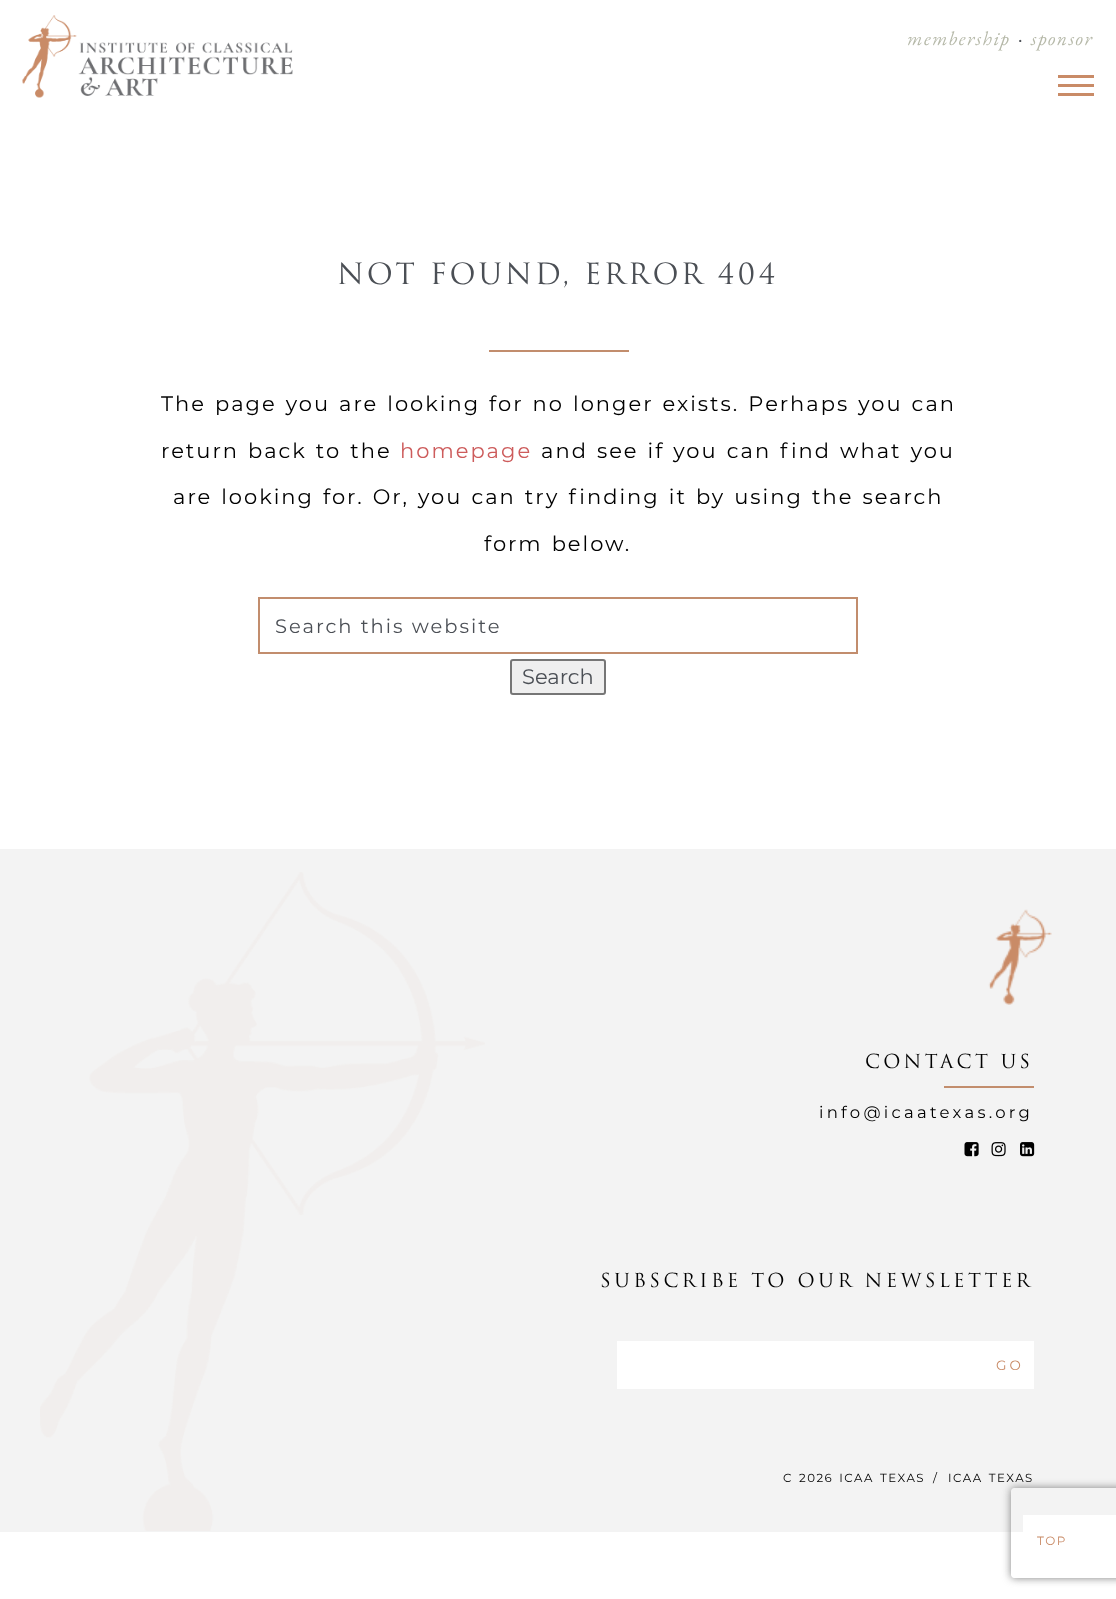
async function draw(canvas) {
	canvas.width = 1116;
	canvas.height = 1599;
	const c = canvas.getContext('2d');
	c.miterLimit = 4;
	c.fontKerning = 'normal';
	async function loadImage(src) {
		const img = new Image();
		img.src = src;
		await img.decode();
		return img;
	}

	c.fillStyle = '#fff';
	c.fillRect(0, 0, 1116, 1599);
	c.drawImage(await loadImage('img1.png'), 22, 15, 271, 83);
	c.letterSpacing = '1.5px';
	c.font = 'italic 19.5px EB Garamond';
	c.fillStyle = '#b6b9a9';
	c.fillText('membership', 907, 45);
	c.letterSpacing = '0px';
	c.font = '21px Montserrat';
	c.fillStyle = '#4b4f55';
	c.fillText('.', 1018, 42);
	c.letterSpacing = '1.5px';
	c.font = 'italic 19.5px EB Garamond';
	c.fillStyle = '#b6b9a9';
	c.fillText('sponsor', 1031, 45);
	for (const [x, y, w, h, color] of [
		[1058, 84, 36, 3, '#c98b67'],
		[1058, 75, 36, 3, '#c98b67'],
		[1058, 93, 36, 3, '#c98b67'],
	]) {
		c.fillStyle = color;
		c.fillRect(x, y, w, h);
	}
	c.letterSpacing = '2.8px';
	c.font = '28.5px "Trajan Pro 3"';
	c.fillStyle = '#4b4f55';
	c.fillText('NOT FOUND, ERROR 404', 337, 284);
	c.fillStyle = '#c28d6d';
	c.fillRect(489, 350, 140, 2);
	c.letterSpacing = '2px';
	c.wordSpacing = '1.5px';
	c.font = '21px Montserrat';
	c.fillStyle = '#000';
	c.fillText('The page you are looking for no longer exists. Perhaps you can', 161, 411);
	c.fillText('return back to the', 161, 458);
	c.wordSpacing = '0px';
	c.fillStyle = '#cd5c5c';
	c.fillText('homepage', 400, 458);
	c.wordSpacing = '1.5px';
	c.fillStyle = '#000';
	for (const [text, x, y] of [
		['and see if you can find what you', 541, 458],
		['are looking for. Or, you can try finding it by using the search', 173, 504],
		['form below.', 484, 551],
	]) {
		c.fillText(text, x, y);
	}
	c.strokeStyle = '#c28d6d';
	c.lineWidth = 2;
	c.strokeRect(259, 598, 598, 55);
	c.wordSpacing = '0px';
	c.font = '19.5px Montserrat';
	c.fillStyle = '#4b4f55';
	c.fillText('Search this website', 275, 633);
	c.fillStyle = '#efefef';
	c.beginPath();
	c.roundRect(511, 660, 94, 34, 2);
	c.fill();
	c.strokeStyle = '#767676';
	c.stroke();
	c.letterSpacing = '0px';
	c.font = '21px Montserrat';
	c.fillStyle = '#4b4f55';
	c.fillText('Search', 522, 684);
	c.fillStyle = '#f3f3f3';
	c.fillRect(0, 849, 1116, 683);
	c.drawImage(await loadImage('img2.png'), 40, 872, 445, 659);
	c.drawImage(await loadImage('img3.png'), 988, 909, 64, 96);
	c.letterSpacing = '3.25px';
	c.font = '18.8px "Trajan Pro 3"';
	c.fillStyle = '#000';
	c.fillText('CONTACT US', 865, 1068);
	c.fillStyle = '#c28d6d';
	c.fillRect(944, 1086, 90, 2);
	c.font = '16.5px Montserrat';
	c.fillStyle = '#000';
	c.fillText('info@icaatexas.org', 819, 1118);
	c.drawImage(await loadImage('img4.png'), 964, 1142, 15, 15);
	c.drawImage(await loadImage('img5.png'), 991, 1142, 15, 15);
	c.drawImage(await loadImage('img6.png'), 1020, 1142, 15, 15);
	c.letterSpacing = '3.45px';
	c.font = '18.8px "Trajan Pro 3"';
	c.fillText('SUBSCRIBE TO OUR NEWSLETTER', 600, 1287);
	c.fillStyle = '#fff';
	c.fillRect(617, 1341, 417, 48);
	c.letterSpacing = '3px';
	c.font = '13.5px Montserrat';
	c.fillStyle = '#c98b67';
	c.fillText('GO', 996, 1370);
	c.letterSpacing = '1.5px';
	c.wordSpacing = '1.5px';
	c.font = '11.75px Montserrat';
	c.fillStyle = '#000';
	c.fillText('C 2026 ICAA TEXAS', 783, 1482);
	c.wordSpacing = '0px';
	c.fillText('/', 933, 1482);
	c.wordSpacing = '1.5px';
	c.fillText('ICAA TEXAS', 948, 1482);
	c.save();
	c.beginPath();
	c.moveTo(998, 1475);
	c.lineTo(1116, 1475);
	c.lineTo(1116, 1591);
	c.lineTo(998, 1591);
	c.closePath();
	c.moveTo(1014, 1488);
	c.lineTo(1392, 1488);
	c.bezierCurveTo(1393.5, 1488, 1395, 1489.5, 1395, 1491);
	c.lineTo(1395, 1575);
	c.bezierCurveTo(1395, 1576.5, 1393.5, 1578, 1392, 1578);
	c.lineTo(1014, 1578);
	c.bezierCurveTo(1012.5, 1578, 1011, 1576.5, 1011, 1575);
	c.lineTo(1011, 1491);
	c.bezierCurveTo(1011, 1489.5, 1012.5, 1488, 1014, 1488);
	c.closePath();
	c.clip('evenodd');
	c.fillStyle = '#808080';
	c.filter = 'blur(4px)';
	c.beginPath();
	c.roundRect(1011, 1488, 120, 90, 3);
	c.fill();
	c.filter = 'none';
	c.restore();
	c.fillStyle = '#fff';
	c.fillRect(1023, 1515, 93, 17);
	c.wordSpacing = '0px';
	c.font = '12px Montserrat';
	c.fillStyle = '#c98b67';
	c.fillText('TOP', 1037, 1545);
}

draw(document.querySelector('canvas'));
